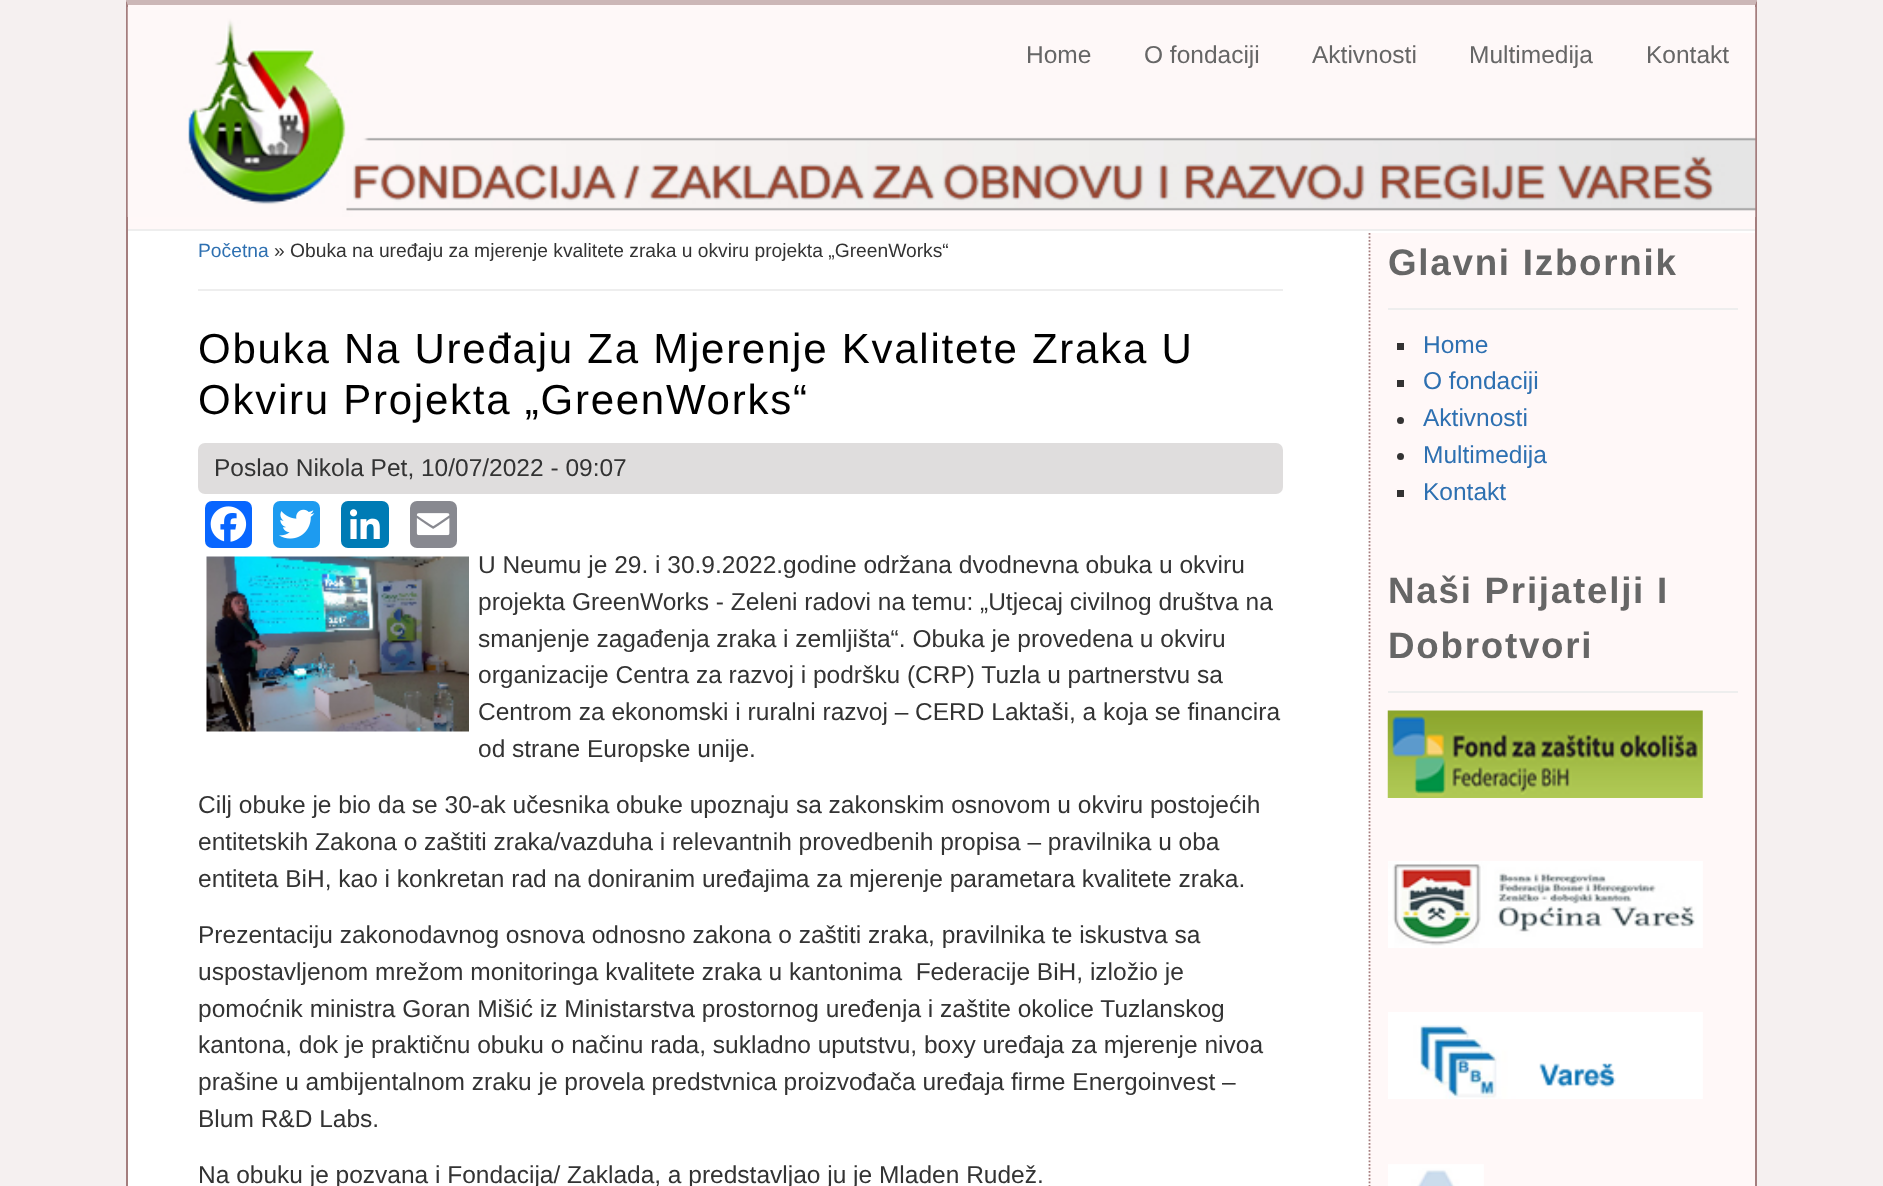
async function draw(canvas) {
	canvas.width = 1883;
	canvas.height = 1186;
	const c = canvas.getContext('2d');
	c.miterLimit = 4;
	c.fontKerning = 'normal';
	async function loadImage(src) {
		const img = new Image();
		img.src = src;
		await img.decode();
		return img;
	}

	c.fillStyle = '#f5f0f0';
	c.fillRect(0, 0, 1883, 1186);
	c.fillStyle = '#fff';
	c.fillRect(126, 0, 1631, 1186);
	c.fillStyle = '#ccb7b7';
	c.beginPath();
	c.moveTo(126, 0);
	c.lineTo(1757, 0);
	c.lineTo(1755, 5);
	c.lineTo(128, 5);
	c.closePath();
	c.fill();
	c.fillStyle = '#a47e7e';
	c.beginPath();
	c.moveTo(1757, 0);
	c.lineTo(1757, 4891);
	c.lineTo(1755, 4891);
	c.lineTo(1755, 5);
	c.closePath();
	c.fill();
	c.beginPath();
	c.moveTo(126, 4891);
	c.lineTo(126, 0);
	c.lineTo(128, 5);
	c.lineTo(128, 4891);
	c.closePath();
	c.fill();
	c.fillStyle = '#fff8f8';
	c.fillRect(128, 5, 1627, 224);
	c.fillStyle = '#eee';
	c.fillRect(128, 229, 1627, 2);
	c.drawImage(await loadImage('img1.png'), 127, 7, 1629, 210);
	c.font = '24.5px Liberation Sans';
	c.fillStyle = '#666';
	for (const [text, x, y] of [
		['Home', 1026, 63],
		['O fondaciji', 1144, 63],
		['Aktivnosti', 1312, 63],
		['Multimedija', 1469, 63],
		['Kontakt', 1646, 63],
	]) {
		c.fillText(text, x, y);
	}
	c.fillStyle = '#eee';
	c.fillRect(198, 289, 1085, 2);
	c.font = '19.25px Liberation Sans';
	c.fillStyle = '#2e70b1';
	c.fillText('Početna', 198, 257);
	c.fillStyle = '#333';
	c.fillText('» Obuka na uređaju za mjerenje kvalitete zraka u okviru projekta „GreenWorks“', 274, 257);
	c.letterSpacing = '1.75px';
	c.font = '42px Liberation Sans';
	c.fillStyle = '#000';
	c.fillText('Obuka Na Uređaju Za Mjerenje Kvalitete Zraka U', 198, 363);
	c.fillText('Okviru Projekta „GreenWorks“', 198, 414);
	c.fillStyle = '#dfdddd';
	c.beginPath();
	c.roundRect(198, 443, 1085, 51, 7);
	c.fill();
	c.letterSpacing = '0px';
	c.font = '24.5px Liberation Sans';
	c.fillStyle = '#333';
	c.fillText('Poslao Nikola Pet, 10/07/2022 - 09:07', 214, 476);
	c.fillStyle = '#0866ff';
	c.beginPath();
	c.roundRect(205, 501, 47, 47, 7);
	c.fill();
	c.drawImage(await loadImage('img2.png'), 210, 506, 37, 36);
	c.fillStyle = '#1d9bf0';
	c.beginPath();
	c.roundRect(273, 501, 47, 47, 7);
	c.fill();
	c.drawImage(await loadImage('img3.png'), 279, 509, 36, 30);
	c.fillStyle = '#007bb5';
	c.beginPath();
	c.roundRect(341, 501, 48, 47, 7);
	c.fill();
	c.drawImage(await loadImage('img4.png'), 350, 509, 30, 30);
	c.fillStyle = '#888990';
	c.beginPath();
	c.roundRect(410, 501, 47, 47, 7);
	c.fill();
	c.drawImage(await loadImage('img5.png'), 416, 513, 34, 23);
	c.drawImage(await loadImage('img6.png'), 206, 556, 263, 176);
	c.fillStyle = '#333';
	for (const [text, x, y] of [
		['U Neumu je 29. i 30.9.2022.godine održana dvodnevna obuka u okviru', 478, 573],
		['projekta GreenWorks - Zeleni radovi na temu: „Utjecaj civilnog društva na', 478, 610],
		['smanjenje zagađenja zraka i zemljišta“. Obuka je provedena u okviru', 478, 647],
		['organizacije Centra za razvoj i podršku (CRP) Tuzla u partnerstvu sa', 478, 683],
		['Centrom za ekonomski i ruralni razvoj – CERD Laktaši, a koja se financira', 478, 720],
		['od strane Europske unije.', 478, 757],
		['Cilj obuke je bio da se 30-ak učesnika obuke upoznaju sa zakonskim osnovom u okviru postojećih', 198, 813],
		['entitetskih Zakona o zaštiti zraka/vazduha i relevantnih provedbenih propisa – pravilnika u oba', 198, 850],
		['entiteta BiH, kao i konkretan rad na doniranim uređajima za mjerenje parametara kvalitete zraka.', 198, 887],
		['Prezentaciju zakonodavnog osnova odnosno zakona o zaštiti zraka, pravilnika te iskustva sa', 198, 943],
		['uspostavljenom mrežom monitoringa kvalitete zraka u kantonima  Federacije BiH, izložio je', 198, 980],
		['pomoćnik ministra Goran Mišić iz Ministarstva prostornog uređenja i zaštite okolice Tuzlanskog', 198, 1017],
		['kantona, dok je praktičnu obuku o načinu rada, sukladno uputstvu, boxy uređaja za mjerenje nivoa', 198, 1053],
		['prašine u ambijentalnom zraku je provela predstvnica proizvođača uređaja firme Energoinvest –', 198, 1090],
		['Blum R&D Labs.', 198, 1127],
		['Na obuku je pozvana i Fondacija/ Zaklada, a predstavljao ju je Mladen Rudež.', 198, 1183],
	]) {
		c.fillText(text, x, y);
	}
	c.fillStyle = '#fff8f8';
	c.fillRect(1369, 233, 386, 953);
	c.beginPath();
	c.moveTo(1369.5, 233);
	c.lineTo(1369.5, 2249);
	c.strokeStyle = '#a47e7e';
	c.lineWidth = 1.8;
	c.setLineDash([1.75, 1.75]);
	c.stroke();
	c.fillStyle = '#eee';
	c.fillRect(1388, 308, 350, 2);
	c.letterSpacing = '1.75px';
	c.font = 'bold 36.75px Liberation Sans';
	c.fillStyle = '#666';
	c.fillText('Glavni Izbornik', 1388, 275);
	c.fillStyle = '#333';
	c.fillRect(1397, 343, 7, 7);
	c.letterSpacing = '0px';
	c.font = '24.5px Liberation Sans';
	c.fillStyle = '#2e70b1';
	c.fillText('Home', 1423, 353);
	c.fillStyle = '#333';
	c.fillRect(1397, 380, 7, 7);
	c.fillStyle = '#2e70b1';
	c.fillText('O fondaciji', 1423, 389);
	c.fillStyle = '#333';
	c.beginPath();
	c.arc(1400.5, 420.5, 3.5, 0, 2 * Math.PI);
	c.fill();
	c.fillStyle = '#2e70b1';
	c.fillText('Aktivnosti', 1423, 426);
	c.fillStyle = '#333';
	c.beginPath();
	c.arc(1400.5, 456.5, 3.5, 0, 2 * Math.PI);
	c.fill();
	c.fillStyle = '#2e70b1';
	c.fillText('Multimedija', 1423, 463);
	c.fillStyle = '#333';
	c.fillRect(1397, 490, 7, 7);
	c.fillStyle = '#2e70b1';
	c.fillText('Kontakt', 1423, 500);
	c.fillStyle = '#eee';
	c.fillRect(1388, 691, 350, 2);
	c.letterSpacing = '1.75px';
	c.font = 'bold 36.75px Liberation Sans';
	c.fillStyle = '#666';
	c.fillText('Naši Prijatelji I', 1388, 603);
	c.fillText('Dobrotvori', 1388, 658);
	c.drawImage(await loadImage('img7.png'), 1387, 710, 316, 88);
	c.drawImage(await loadImage('img8.png'), 1388, 861, 315, 87);
	c.drawImage(await loadImage('img9.png'), 1388, 1012, 315, 87);
	c.drawImage(await loadImage('img10.png'), 1388, 1164, 96, 22);
}

draw(document.querySelector('canvas'));
